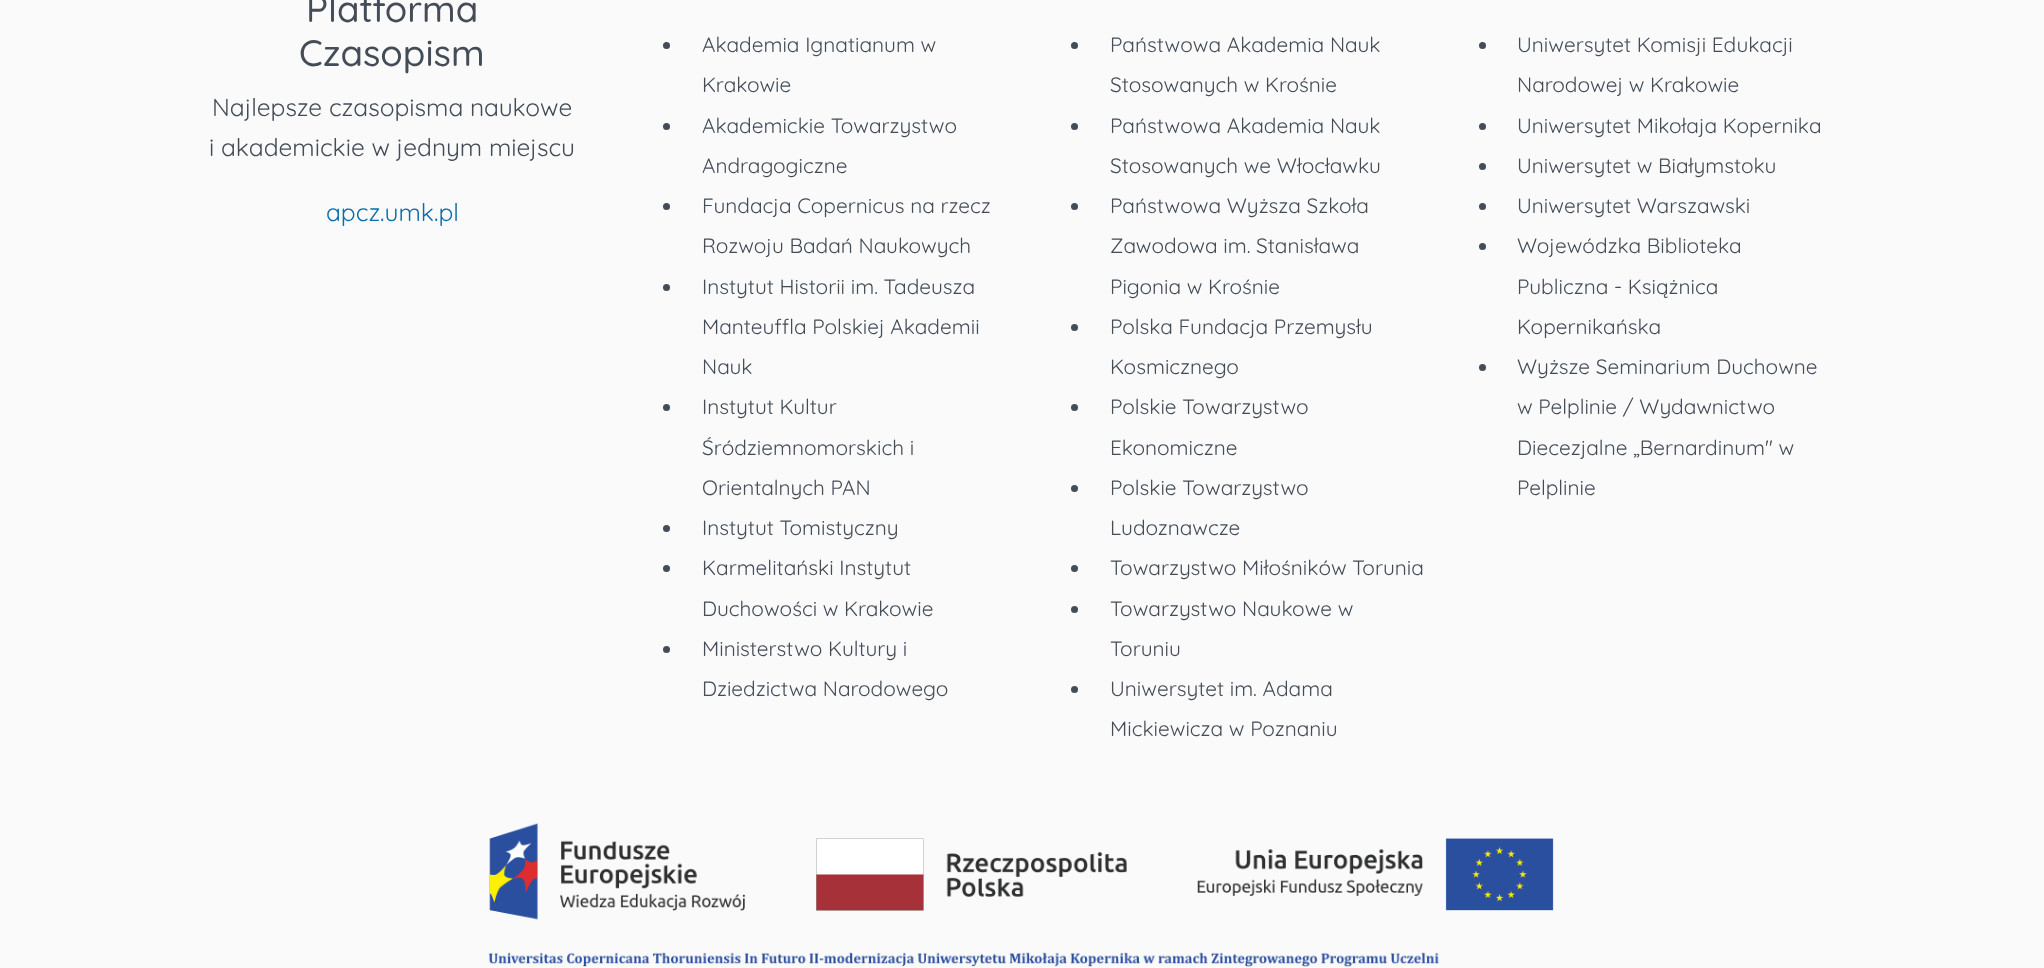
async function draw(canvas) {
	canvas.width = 2044;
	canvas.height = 968;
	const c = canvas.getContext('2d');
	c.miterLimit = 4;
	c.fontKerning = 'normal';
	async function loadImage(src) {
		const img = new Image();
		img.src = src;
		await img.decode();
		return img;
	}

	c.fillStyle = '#fafafa';
	c.fillRect(0, 0, 2044, 968);
	c.font = '500 36.75px Quicksand';
	c.fillStyle = '#434c57';
	c.fillText('Platforma', 306, 22);
	c.fillText('Czasopism', 299, 66);
	c.font = '24.5px Quicksand';
	c.fillText('Najlepsze czasopisma naukowe', 212, 116);
	c.fillText('i akademickie w jednym miejscu', 209, 156);
	c.fillStyle = '#096dab';
	c.fillText('apcz.umk.pl', 326, 221);
	c.fillStyle = '#434c57';
	c.beginPath();
	c.arc(666.5, 45.5, 3.5, 0, 2 * Math.PI);
	c.fill();
	c.font = '20.8px Quicksand';
	c.fillText('Akademia Ignatianum w', 702, 52);
	c.fillText('Krakowie', 702, 92);
	c.beginPath();
	c.arc(666.5, 126.5, 3.5, 0, 2 * Math.PI);
	c.fill();
	c.fillText('Akademickie Towarzystwo', 702, 133);
	c.fillText('Andragogiczne', 702, 173);
	c.beginPath();
	c.arc(666.5, 206.5, 3.5, 0, 2 * Math.PI);
	c.fill();
	c.fillText('Fundacja Copernicus na rzecz', 702, 213);
	c.fillText('Rozwoju Badań Naukowych', 702, 253);
	c.beginPath();
	c.arc(666.5, 287.5, 3.5, 0, 2 * Math.PI);
	c.fill();
	for (const [text, x, y] of [
		['Instytut Historii im. Tadeusza', 702, 294],
		['Manteuffla Polskiej Akademii', 702, 334],
		['Nauk', 702, 374],
	]) {
		c.fillText(text, x, y);
	}
	c.beginPath();
	c.arc(666.5, 407.5, 3.5, 0, 2 * Math.PI);
	c.fill();
	for (const [text, x, y] of [
		['Instytut Kultur', 702, 414],
		['Śródziemnomorskich i', 702, 455],
		['Orientalnych PAN', 702, 495],
	]) {
		c.fillText(text, x, y);
	}
	c.beginPath();
	c.arc(666.5, 528.5, 3.5, 0, 2 * Math.PI);
	c.fill();
	c.fillText('Instytut Tomistyczny', 702, 535);
	c.beginPath();
	c.arc(666.5, 568.5, 3.5, 0, 2 * Math.PI);
	c.fill();
	c.fillText('Karmelitański Instytut', 702, 575);
	c.fillText('Duchowości w Krakowie', 702, 616);
	c.beginPath();
	c.arc(666.5, 649.5, 3.5, 0, 2 * Math.PI);
	c.fill();
	c.fillText('Ministerstwo Kultury i', 702, 656);
	c.fillText('Dziedzictwa Narodowego', 702, 696);
	c.beginPath();
	c.arc(1074.5, 45.5, 3.5, 0, 2 * Math.PI);
	c.fill();
	c.fillText('Państwowa Akademia Nauk', 1110, 52);
	c.fillText('Stosowanych w Krośnie', 1110, 92);
	c.beginPath();
	c.arc(1074.5, 126.5, 3.5, 0, 2 * Math.PI);
	c.fill();
	c.fillText('Państwowa Akademia Nauk', 1110, 133);
	c.fillText('Stosowanych we Włocławku', 1110, 173);
	c.beginPath();
	c.arc(1074.5, 206.5, 3.5, 0, 2 * Math.PI);
	c.fill();
	for (const [text, x, y] of [
		['Państwowa Wyższa Szkoła', 1110, 213],
		['Zawodowa im. Stanisława', 1110, 253],
		['Pigonia w Krośnie', 1110, 294],
	]) {
		c.fillText(text, x, y);
	}
	c.beginPath();
	c.arc(1074.5, 327.5, 3.5, 0, 2 * Math.PI);
	c.fill();
	c.fillText('Polska Fundacja Przemysłu', 1110, 334);
	c.fillText('Kosmicznego', 1110, 374);
	c.beginPath();
	c.arc(1074.5, 407.5, 3.5, 0, 2 * Math.PI);
	c.fill();
	c.fillText('Polskie Towarzystwo', 1110, 414);
	c.fillText('Ekonomiczne', 1110, 455);
	c.beginPath();
	c.arc(1074.5, 488.5, 3.5, 0, 2 * Math.PI);
	c.fill();
	c.fillText('Polskie Towarzystwo', 1110, 495);
	c.fillText('Ludoznawcze', 1110, 535);
	c.beginPath();
	c.arc(1074.5, 568.5, 3.5, 0, 2 * Math.PI);
	c.fill();
	c.fillText('Towarzystwo Miłośników Torunia', 1110, 575);
	c.beginPath();
	c.arc(1074.5, 609.5, 3.5, 0, 2 * Math.PI);
	c.fill();
	c.fillText('Towarzystwo Naukowe w', 1110, 616);
	c.fillText('Toruniu', 1110, 656);
	c.beginPath();
	c.arc(1074.5, 689.5, 3.5, 0, 2 * Math.PI);
	c.fill();
	c.fillText('Uniwersytet im. Adama', 1110, 696);
	c.fillText('Mickiewicza w Poznaniu', 1110, 736);
	c.beginPath();
	c.arc(1482.5, 45.5, 3.5, 0, 2 * Math.PI);
	c.fill();
	c.fillText('Uniwersytet Komisji Edukacji', 1517, 52);
	c.fillText('Narodowej w Krakowie', 1517, 92);
	c.beginPath();
	c.arc(1482.5, 126.5, 3.5, 0, 2 * Math.PI);
	c.fill();
	c.fillText('Uniwersytet Mikołaja Kopernika', 1517, 133);
	c.beginPath();
	c.arc(1482.5, 166.5, 3.5, 0, 2 * Math.PI);
	c.fill();
	c.fillText('Uniwersytet w Białymstoku', 1517, 173);
	c.beginPath();
	c.arc(1482.5, 206.5, 3.5, 0, 2 * Math.PI);
	c.fill();
	c.fillText('Uniwersytet Warszawski', 1517, 213);
	c.beginPath();
	c.arc(1482.5, 246.5, 3.5, 0, 2 * Math.PI);
	c.fill();
	for (const [text, x, y] of [
		['Wojewódzka Biblioteka', 1517, 253],
		['Publiczna - Książnica', 1517, 294],
		['Kopernikańska', 1517, 334],
	]) {
		c.fillText(text, x, y);
	}
	c.beginPath();
	c.arc(1482.5, 367.5, 3.5, 0, 2 * Math.PI);
	c.fill();
	for (const [text, x, y] of [
		['Wyższe Seminarium Duchowne', 1517, 374],
		['w Pelplinie / Wydawnictwo', 1517, 414],
		['Diecezjalne „Bernardinum" w', 1517, 455],
		['Pelplinie', 1517, 495],
	]) {
		c.fillText(text, x, y);
	}
	c.drawImage(await loadImage('img1.png'), 488, 823, 1066, 144);
}

draw(document.querySelector('canvas'));
